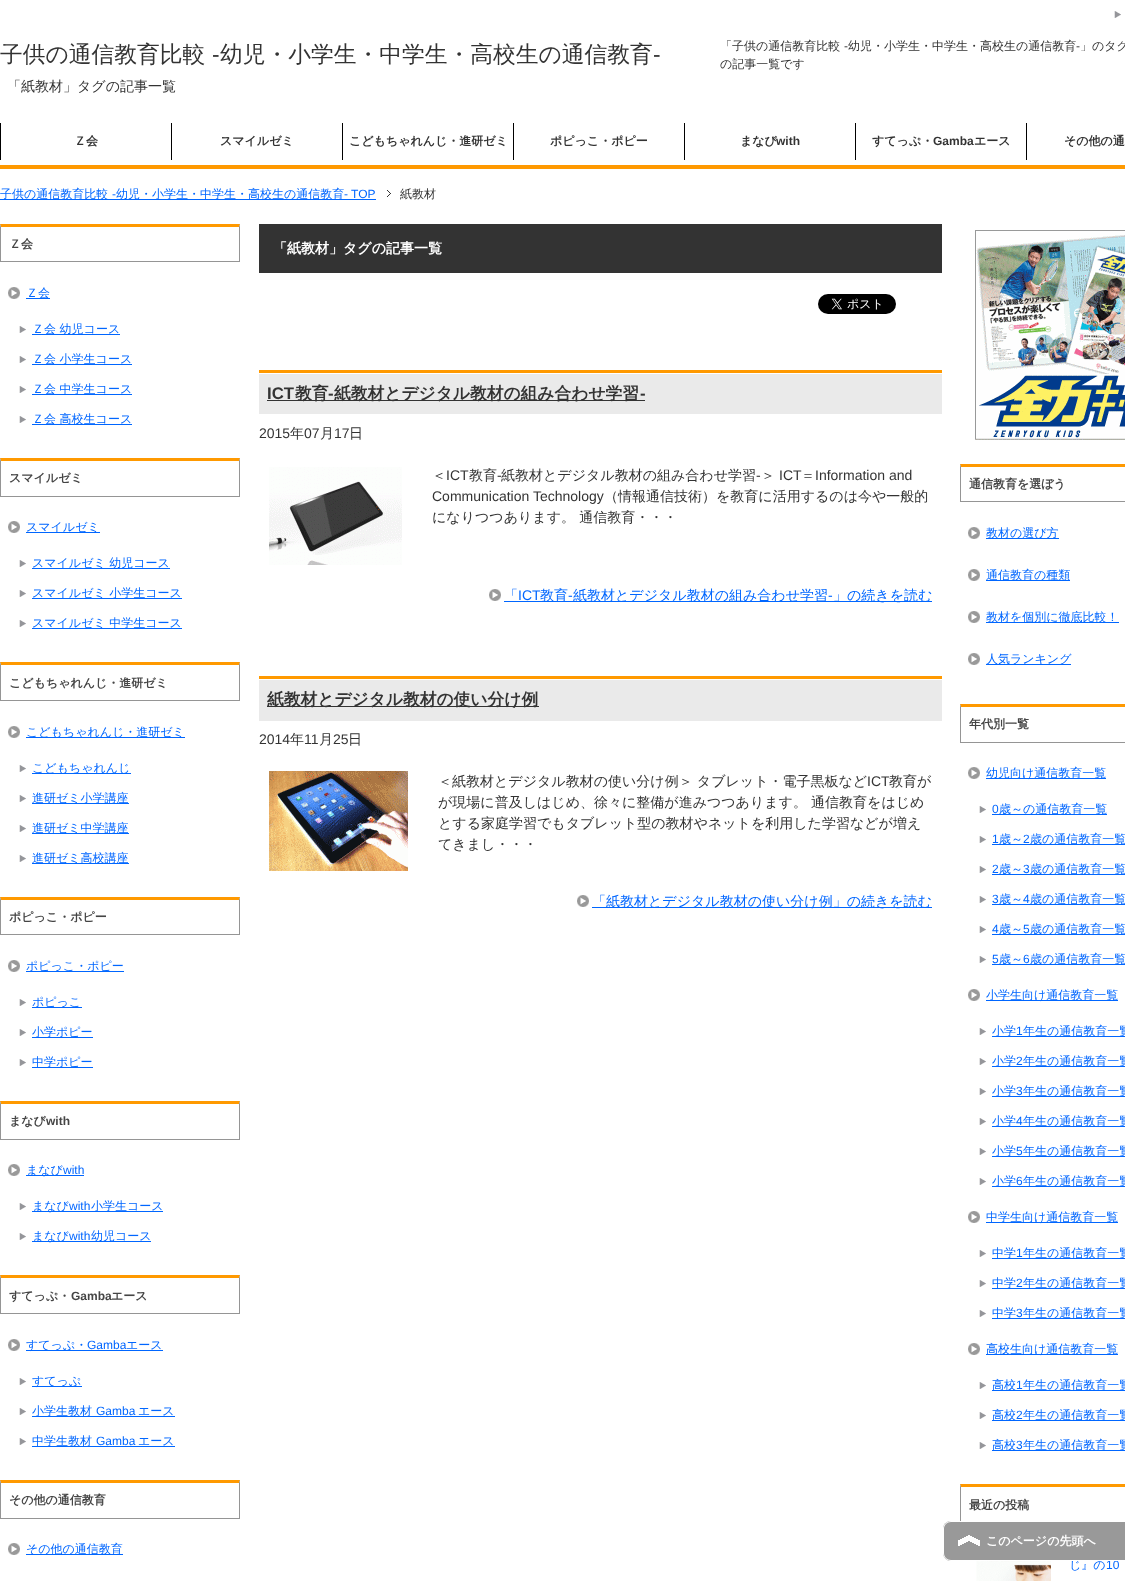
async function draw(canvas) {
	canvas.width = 1125;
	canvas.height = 1581;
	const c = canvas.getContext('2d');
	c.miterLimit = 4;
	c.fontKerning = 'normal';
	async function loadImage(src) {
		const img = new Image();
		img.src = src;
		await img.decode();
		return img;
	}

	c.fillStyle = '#fff';
	c.fillRect(0, 0, 1125, 1581);
	c.drawImage(await loadImage('img1.png'), 1114, 11, 7, 7);
	c.font = '500 22.75px WenQuanYi Zen Hei';
	c.fillStyle = '#333';
	c.fillText('子供の通信教育比較', 0, 62);
	c.font = '22.75px Liberation Sans';
	c.fillText('-', 212, 62);
	c.font = '500 22.75px WenQuanYi Zen Hei';
	c.fillText('幼児・小学生・中学生・高校生の通信教育', 220, 62);
	c.font = '22.75px Liberation Sans';
	c.fillText('-', 653, 62);
	c.font = '500 14px WenQuanYi Zen Hei';
	c.fillText('「紙教材」タグの記事一覧', 7, 91);
	c.font = '500 12px WenQuanYi Zen Hei';
	c.fillText('「子供の通信教育比較', 720, 50);
	c.font = '12px Liberation Sans';
	c.fillText('-', 844, 50);
	c.font = '500 12px WenQuanYi Zen Hei';
	c.fillText('幼児・小学生・中学生・高校生の通信教育', 848, 50);
	c.font = '12px Liberation Sans';
	c.fillText('-', 1076, 50);
	c.font = '500 12px WenQuanYi Zen Hei';
	c.fillText('」のタグ', 1080, 50);
	c.fillText('の記事一覧です', 720, 68);
	for (const [x, y, w, h, color] of [
		[0, 165, 1125, 4, '#f90'],
		[171, 123, 1, 37, '#000'],
		[0, 123, 1, 37, '#000'],
	]) {
		c.fillStyle = color;
		c.fillRect(x, y, w, h);
	}
	c.font = 'bold 12px WenQuanYi Zen Hei';
	c.fillStyle = '#333';
	c.fillText('Ｚ会', 74, 145);
	c.fillStyle = '#000';
	c.fillRect(342, 123, 1, 37);
	c.fillStyle = '#333';
	c.fillText('スマイルゼミ', 220, 145);
	c.fillStyle = '#000';
	c.fillRect(513, 123, 1, 37);
	c.fillStyle = '#333';
	c.fillText('こどもちゃれんじ・進研ゼミ', 349, 145);
	c.fillStyle = '#000';
	c.fillRect(684, 123, 1, 37);
	c.fillStyle = '#333';
	c.fillText('ポピっこ・ポピー', 550, 145);
	c.fillStyle = '#000';
	c.fillRect(855, 123, 1, 37);
	c.fillStyle = '#333';
	c.fillText('まなび', 740, 145);
	c.font = 'bold 12px Liberation Sans';
	c.fillText('with', 776, 145);
	c.fillStyle = '#000';
	c.fillRect(1026, 123, 1, 37);
	c.font = 'bold 12px WenQuanYi Zen Hei';
	c.fillStyle = '#333';
	c.fillText('すてっぷ・', 872, 145);
	c.font = 'bold 12px Liberation Sans';
	c.fillText('Gamba', 933, 145);
	c.font = 'bold 12px WenQuanYi Zen Hei';
	c.fillText('エース', 974, 145);
	c.fillText('その他の通', 1064, 145);
	c.fillStyle = '#06f';
	c.fillRect(0, 199, 376, 1);
	c.font = '500 12px WenQuanYi Zen Hei';
	c.fillText('子供の通信教育比較', 0, 198);
	c.font = '12px Liberation Sans';
	c.fillText('-', 112, 198);
	c.font = '500 12px WenQuanYi Zen Hei';
	c.fillText('幼児・小学生・中学生・高校生の通信教育', 116, 198);
	c.font = '12px Liberation Sans';
	c.fillText('- TOP', 344, 198);
	c.drawImage(await loadImage('img2.png'), 387, 190, 4, 7);
	c.font = '500 12px WenQuanYi Zen Hei';
	c.fillStyle = '#333';
	c.fillText('紙教材', 400, 198);
	c.fillStyle = '#f90';
	c.beginPath();
	c.moveTo(0, 224);
	c.lineTo(240, 224);
	c.lineTo(239, 227);
	c.lineTo(1, 227);
	c.closePath();
	c.fill();
	c.fillStyle = '#959595';
	c.beginPath();
	c.moveTo(240, 224);
	c.lineTo(240, 262);
	c.lineTo(239, 261);
	c.lineTo(239, 227);
	c.closePath();
	c.fill();
	c.fillRect(0, 261, 240, 1);
	c.beginPath();
	c.moveTo(0, 262);
	c.lineTo(0, 224);
	c.lineTo(1, 227);
	c.lineTo(1, 261);
	c.closePath();
	c.fill();
	c.font = 'bold 12px WenQuanYi Zen Hei';
	c.fillStyle = '#454545';
	c.fillText('Ｚ会', 9, 248);
	c.drawImage(await loadImage('img3.png'), 8, 287, 12, 12);
	c.fillStyle = '#06f';
	c.fillRect(26, 298, 24, 1);
	c.font = '500 12px WenQuanYi Zen Hei';
	c.fillText('Ｚ会', 26, 297);
	c.drawImage(await loadImage('img1.png'), 19, 326, 7, 7);
	c.fillRect(32, 334, 88, 1);
	c.fillText('Ｚ会 幼児コース', 32, 333);
	c.drawImage(await loadImage('img1.png'), 19, 356, 7, 7);
	c.fillRect(32, 364, 100, 1);
	c.fillText('Ｚ会 小学生コース', 32, 363);
	c.drawImage(await loadImage('img1.png'), 19, 386, 7, 7);
	c.fillRect(32, 394, 100, 1);
	c.fillText('Ｚ会 中学生コース', 32, 393);
	c.drawImage(await loadImage('img1.png'), 19, 416, 7, 7);
	c.fillRect(32, 424, 100, 1);
	c.fillText('Ｚ会 高校生コース', 32, 423);
	c.fillStyle = '#f90';
	c.beginPath();
	c.moveTo(0, 458);
	c.lineTo(240, 458);
	c.lineTo(239, 461);
	c.lineTo(1, 461);
	c.closePath();
	c.fill();
	c.fillStyle = '#959595';
	c.beginPath();
	c.moveTo(240, 458);
	c.lineTo(240, 497);
	c.lineTo(239, 496);
	c.lineTo(239, 461);
	c.closePath();
	c.fill();
	c.fillRect(0, 496, 240, 1);
	c.beginPath();
	c.moveTo(0, 497);
	c.lineTo(0, 458);
	c.lineTo(1, 461);
	c.lineTo(1, 496);
	c.closePath();
	c.fill();
	c.font = 'bold 12px WenQuanYi Zen Hei';
	c.fillStyle = '#454545';
	c.fillText('スマイルゼミ', 9, 482);
	c.drawImage(await loadImage('img3.png'), 8, 521, 12, 12);
	c.fillStyle = '#06f';
	c.fillRect(26, 532, 74, 1);
	c.font = '500 12px WenQuanYi Zen Hei';
	c.fillText('スマイルゼミ', 26, 531);
	c.drawImage(await loadImage('img1.png'), 19, 560, 7, 7);
	c.fillRect(32, 568, 138, 1);
	c.fillText('スマイルゼミ 幼児コース', 32, 567);
	c.drawImage(await loadImage('img1.png'), 19, 590, 7, 7);
	c.fillRect(32, 598, 150, 1);
	c.fillText('スマイルゼミ 小学生コース', 32, 597);
	c.drawImage(await loadImage('img1.png'), 19, 620, 7, 7);
	c.fillRect(32, 628, 150, 1);
	c.fillText('スマイルゼミ 中学生コース', 32, 627);
	c.fillStyle = '#f90';
	c.beginPath();
	c.moveTo(0, 662);
	c.lineTo(240, 662);
	c.lineTo(239, 665);
	c.lineTo(1, 665);
	c.closePath();
	c.fill();
	c.fillStyle = '#959595';
	c.beginPath();
	c.moveTo(240, 662);
	c.lineTo(240, 701);
	c.lineTo(239, 700);
	c.lineTo(239, 665);
	c.closePath();
	c.fill();
	c.fillRect(0, 700, 240, 1);
	c.beginPath();
	c.moveTo(0, 701);
	c.lineTo(0, 662);
	c.lineTo(1, 665);
	c.lineTo(1, 700);
	c.closePath();
	c.fill();
	c.font = 'bold 12px WenQuanYi Zen Hei';
	c.fillStyle = '#454545';
	c.fillText('こどもちゃれんじ・進研ゼミ', 9, 687);
	c.drawImage(await loadImage('img3.png'), 8, 726, 12, 12);
	c.fillStyle = '#06f';
	c.fillRect(26, 737, 159, 1);
	c.font = '500 12px WenQuanYi Zen Hei';
	c.fillText('こどもちゃれんじ・進研ゼミ', 26, 736);
	c.drawImage(await loadImage('img1.png'), 19, 765, 7, 7);
	c.fillRect(32, 773, 99, 1);
	c.fillText('こどもちゃれんじ', 32, 772);
	c.drawImage(await loadImage('img1.png'), 19, 795, 7, 7);
	c.fillRect(32, 803, 97, 1);
	c.fillText('進研ゼミ小学講座', 32, 802);
	c.drawImage(await loadImage('img1.png'), 19, 825, 7, 7);
	c.fillRect(32, 833, 97, 1);
	c.fillText('進研ゼミ中学講座', 32, 832);
	c.drawImage(await loadImage('img1.png'), 19, 855, 7, 7);
	c.fillRect(32, 863, 97, 1);
	c.fillText('進研ゼミ高校講座', 32, 862);
	c.fillStyle = '#f90';
	c.beginPath();
	c.moveTo(0, 897);
	c.lineTo(240, 897);
	c.lineTo(239, 900);
	c.lineTo(1, 900);
	c.closePath();
	c.fill();
	c.fillStyle = '#959595';
	c.beginPath();
	c.moveTo(240, 897);
	c.lineTo(240, 935);
	c.lineTo(239, 934);
	c.lineTo(239, 900);
	c.closePath();
	c.fill();
	c.fillRect(0, 934, 240, 1);
	c.beginPath();
	c.moveTo(0, 935);
	c.lineTo(0, 897);
	c.lineTo(1, 900);
	c.lineTo(1, 934);
	c.closePath();
	c.fill();
	c.font = 'bold 12px WenQuanYi Zen Hei';
	c.fillStyle = '#454545';
	c.fillText('ポピっこ・ポピー', 9, 921);
	c.drawImage(await loadImage('img3.png'), 8, 960, 12, 12);
	c.fillStyle = '#06f';
	c.fillRect(26, 971, 98, 1);
	c.font = '500 12px WenQuanYi Zen Hei';
	c.fillText('ポピっこ・ポピー', 26, 970);
	c.drawImage(await loadImage('img1.png'), 19, 999, 7, 7);
	c.fillRect(32, 1007, 50, 1);
	c.fillText('ポピっこ', 32, 1006);
	c.drawImage(await loadImage('img1.png'), 19, 1029, 7, 7);
	c.fillRect(32, 1037, 61, 1);
	c.fillText('小学ポピー', 32, 1036);
	c.drawImage(await loadImage('img1.png'), 19, 1059, 7, 7);
	c.fillRect(32, 1067, 61, 1);
	c.fillText('中学ポピー', 32, 1066);
	c.fillStyle = '#f90';
	c.beginPath();
	c.moveTo(0, 1101);
	c.lineTo(240, 1101);
	c.lineTo(239, 1104);
	c.lineTo(1, 1104);
	c.closePath();
	c.fill();
	c.fillStyle = '#959595';
	c.beginPath();
	c.moveTo(240, 1101);
	c.lineTo(240, 1140);
	c.lineTo(239, 1139);
	c.lineTo(239, 1104);
	c.closePath();
	c.fill();
	c.fillRect(0, 1139, 240, 1);
	c.beginPath();
	c.moveTo(0, 1140);
	c.lineTo(0, 1101);
	c.lineTo(1, 1104);
	c.lineTo(1, 1139);
	c.closePath();
	c.fill();
	c.font = 'bold 12px WenQuanYi Zen Hei';
	c.fillStyle = '#454545';
	c.fillText('まなび', 9, 1125);
	c.font = 'bold 12px Liberation Sans';
	c.fillText('with', 46, 1125);
	c.drawImage(await loadImage('img3.png'), 8, 1164, 12, 12);
	c.fillStyle = '#06f';
	c.fillRect(26, 1175, 58, 1);
	c.font = '500 12px WenQuanYi Zen Hei';
	c.fillText('まなび', 26, 1174);
	c.font = '12px Liberation Sans';
	c.fillText('with', 63, 1174);
	c.drawImage(await loadImage('img1.png'), 19, 1203, 7, 7);
	c.fillRect(32, 1211, 131, 1);
	c.font = '500 12px WenQuanYi Zen Hei';
	c.fillText('まなび', 32, 1210);
	c.font = '12px Liberation Sans';
	c.fillText('with', 69, 1210);
	c.font = '500 12px WenQuanYi Zen Hei';
	c.fillText('小学生コース', 91, 1210);
	c.drawImage(await loadImage('img1.png'), 19, 1233, 7, 7);
	c.fillRect(32, 1241, 119, 1);
	c.fillText('まなび', 32, 1240);
	c.font = '12px Liberation Sans';
	c.fillText('with', 69, 1240);
	c.font = '500 12px WenQuanYi Zen Hei';
	c.fillText('幼児コース', 91, 1240);
	c.fillStyle = '#f90';
	c.beginPath();
	c.moveTo(0, 1275);
	c.lineTo(240, 1275);
	c.lineTo(239, 1278);
	c.lineTo(1, 1278);
	c.closePath();
	c.fill();
	c.fillStyle = '#959595';
	c.beginPath();
	c.moveTo(240, 1275);
	c.lineTo(240, 1314);
	c.lineTo(239, 1313);
	c.lineTo(239, 1278);
	c.closePath();
	c.fill();
	c.fillRect(0, 1313, 240, 1);
	c.beginPath();
	c.moveTo(0, 1314);
	c.lineTo(0, 1275);
	c.lineTo(1, 1278);
	c.lineTo(1, 1313);
	c.closePath();
	c.fill();
	c.font = 'bold 12px WenQuanYi Zen Hei';
	c.fillStyle = '#454545';
	c.fillText('すてっぷ・', 9, 1300);
	c.font = 'bold 12px Liberation Sans';
	c.fillText('Gamba', 71, 1300);
	c.font = 'bold 12px WenQuanYi Zen Hei';
	c.fillText('エース', 111, 1300);
	c.drawImage(await loadImage('img3.png'), 8, 1339, 12, 12);
	c.fillStyle = '#06f';
	c.fillRect(26, 1350, 137, 1);
	c.font = '500 12px WenQuanYi Zen Hei';
	c.fillText('すてっぷ・', 26, 1349);
	c.font = '12px Liberation Sans';
	c.fillText('Gamba', 87, 1349);
	c.font = '500 12px WenQuanYi Zen Hei';
	c.fillText('エース', 126, 1349);
	c.drawImage(await loadImage('img1.png'), 19, 1378, 7, 7);
	c.fillRect(32, 1386, 50, 1);
	c.fillText('すてっぷ', 32, 1385);
	c.drawImage(await loadImage('img1.png'), 19, 1408, 7, 7);
	c.fillRect(32, 1416, 143, 1);
	c.fillText('小学生教材', 32, 1415);
	c.font = '12px Liberation Sans';
	c.fillText('Gamba', 96, 1415);
	c.font = '500 12px WenQuanYi Zen Hei';
	c.fillText('エース', 138, 1415);
	c.drawImage(await loadImage('img1.png'), 19, 1438, 7, 7);
	c.fillRect(32, 1446, 143, 1);
	c.fillText('中学生教材', 32, 1445);
	c.font = '12px Liberation Sans';
	c.fillText('Gamba', 96, 1445);
	c.font = '500 12px WenQuanYi Zen Hei';
	c.fillText('エース', 138, 1445);
	c.fillStyle = '#f90';
	c.beginPath();
	c.moveTo(0, 1480);
	c.lineTo(240, 1480);
	c.lineTo(239, 1483);
	c.lineTo(1, 1483);
	c.closePath();
	c.fill();
	c.fillStyle = '#959595';
	c.beginPath();
	c.moveTo(240, 1480);
	c.lineTo(240, 1519);
	c.lineTo(239, 1518);
	c.lineTo(239, 1483);
	c.closePath();
	c.fill();
	c.fillRect(0, 1518, 240, 1);
	c.beginPath();
	c.moveTo(0, 1519);
	c.lineTo(0, 1480);
	c.lineTo(1, 1483);
	c.lineTo(1, 1518);
	c.closePath();
	c.fill();
	c.font = 'bold 12px WenQuanYi Zen Hei';
	c.fillStyle = '#454545';
	c.fillText('その他の通信教育', 9, 1504);
	c.drawImage(await loadImage('img3.png'), 8, 1543, 12, 12);
	c.fillStyle = '#06f';
	c.fillRect(26, 1554, 97, 1);
	c.font = '500 12px WenQuanYi Zen Hei';
	c.fillText('その他の通信教育', 26, 1553);
	c.fillStyle = '#333';
	c.fillRect(259, 224, 683, 49);
	c.font = 'bold 14px WenQuanYi Zen Hei';
	c.fillStyle = '#fff';
	c.fillText('「紙教材」タグの記事一覧', 273, 253);
	c.drawImage(await loadImage('img4.png'), 818, 294, 78, 20);
	c.fillStyle = '#eaeaea';
	c.fillRect(259, 374, 683, 40);
	c.fillStyle = '#f90';
	c.fillRect(259, 370, 683, 3);
	c.font = 'bold 16.75px Liberation Sans';
	c.fillStyle = '#333';
	c.fillText('ICT', 267, 399);
	c.fillRect(267, 400, 378, 1);
	c.font = 'bold 16.75px WenQuanYi Zen Hei';
	c.fillText('教育', 295, 399);
	c.font = 'bold 16.75px Liberation Sans';
	c.fillText('-', 328, 399);
	c.font = 'bold 16.75px WenQuanYi Zen Hei';
	c.fillText('紙教材とデジタル教材の組み合わせ学習', 334, 399);
	c.font = 'bold 16.75px Liberation Sans';
	c.fillText('-', 640, 399);
	c.font = '14px Liberation Sans';
	c.fillText('2015', 259, 438);
	c.font = '500 14px WenQuanYi Zen Hei';
	c.fillText('年', 290, 438);
	c.font = '14px Liberation Sans';
	c.fillText('07', 304, 438);
	c.font = '500 14px WenQuanYi Zen Hei';
	c.fillText('月', 320, 438);
	c.font = '14px Liberation Sans';
	c.fillText('17', 334, 438);
	c.font = '500 14px WenQuanYi Zen Hei';
	c.fillText('日', 349, 438);
	c.drawImage(await loadImage('img5.png'), 269, 467, 133, 98);
	c.fillText('＜', 432, 480);
	c.font = '14px Liberation Sans';
	c.fillText('ICT', 446, 480);
	c.font = '500 14px WenQuanYi Zen Hei';
	c.fillText('教育', 469, 480);
	c.font = '14px Liberation Sans';
	c.fillText('-', 497, 480);
	c.font = '500 14px WenQuanYi Zen Hei';
	c.fillText('紙教材とデジタル教材の組み合わせ学習', 501, 480);
	c.font = '14px Liberation Sans';
	c.fillText('-', 756, 480);
	c.font = '500 14px WenQuanYi Zen Hei';
	c.fillText('＞', 761, 480);
	c.font = '14px Liberation Sans';
	c.fillText('ICT', 779, 480);
	c.font = '500 14px WenQuanYi Zen Hei';
	c.fillText('＝', 801, 480);
	c.font = '14px Liberation Sans';
	c.fillText('Information and', 815, 480);
	c.fillText('Communication Technology', 432, 501);
	c.font = '500 14px WenQuanYi Zen Hei';
	c.fillText('（情報通信技術）を教育に活用するのは今や一般的', 604, 501);
	c.fillText('になりつつあります。 通信教育・・・', 432, 522);
	c.drawImage(await loadImage('img3.png'), 489, 589, 12, 12);
	c.fillStyle = '#06f';
	c.fillText('「', 504, 600);
	c.font = '14px Liberation Sans';
	c.fillText('ICT', 518, 600);
	c.fillRect(504, 601, 428, 1);
	c.font = '500 14px WenQuanYi Zen Hei';
	c.fillText('教育', 540, 600);
	c.font = '14px Liberation Sans';
	c.fillText('-', 568, 600);
	c.font = '500 14px WenQuanYi Zen Hei';
	c.fillText('紙教材とデジタル教材の組み合わせ学習', 573, 600);
	c.font = '14px Liberation Sans';
	c.fillText('-', 828, 600);
	c.font = '500 14px WenQuanYi Zen Hei';
	c.fillText('」の続きを読む', 833, 600);
	for (const [x, y, w, h, color] of [
		[259, 680, 683, 41, '#eaeaea'],
		[259, 676, 683, 3, '#f90'],
		[267, 706, 272, 1, '#333'],
	]) {
		c.fillStyle = color;
		c.fillRect(x, y, w, h);
	}
	c.font = 'bold 16.75px WenQuanYi Zen Hei';
	c.fillText('紙教材とデジタル教材の使い分け例', 267, 705);
	c.font = '14px Liberation Sans';
	c.fillText('2014', 259, 744);
	c.font = '500 14px WenQuanYi Zen Hei';
	c.fillText('年', 290, 744);
	c.font = '14px Liberation Sans';
	c.fillText('11', 304, 744);
	c.font = '500 14px WenQuanYi Zen Hei';
	c.fillText('月', 319, 744);
	c.font = '14px Liberation Sans';
	c.fillText('25', 333, 744);
	c.font = '500 14px WenQuanYi Zen Hei';
	c.fillText('日', 348, 744);
	c.drawImage(await loadImage('img6.png'), 269, 771, 139, 100);
	c.fillText('＜紙教材とデジタル教材の使い分け例＞ タブレット・電子黒板など', 438, 786);
	c.font = '14px Liberation Sans';
	c.fillText('ICT', 867, 786);
	c.font = '500 14px WenQuanYi Zen Hei';
	for (const [text, x, y] of [
		['教育が', 889, 786],
		['が現場に普及しはじめ、徐々に整備が進みつつあります。 通信教育をはじめ', 438, 807],
		['とする家庭学習でもタブレット型の教材やネットを利用した学習などが増え', 438, 828],
		['てきまし・・・', 438, 849],
	]) {
		c.fillText(text, x, y);
	}
	c.drawImage(await loadImage('img3.png'), 577, 895, 12, 12);
	c.fillStyle = '#06f';
	c.fillRect(592, 907, 340, 1);
	c.fillText('「紙教材とデジタル教材の使い分け例」の続きを読む', 592, 906);
	c.drawImage(await loadImage('img7.png'), 975, 230, 150, 210);
	c.fillStyle = '#f90';
	c.beginPath();
	c.moveTo(960, 464);
	c.lineTo(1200, 464);
	c.lineTo(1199, 467);
	c.lineTo(961, 467);
	c.closePath();
	c.fill();
	c.fillStyle = '#959595';
	c.fillRect(960, 501, 165, 1);
	c.beginPath();
	c.moveTo(960, 502);
	c.lineTo(960, 464);
	c.lineTo(961, 467);
	c.lineTo(961, 501);
	c.closePath();
	c.fill();
	c.font = 'bold 12px WenQuanYi Zen Hei';
	c.fillStyle = '#454545';
	c.fillText('通信教育を選ぼう', 969, 488);
	c.drawImage(await loadImage('img3.png'), 968, 527, 12, 12);
	c.fillStyle = '#06f';
	c.fillRect(986, 538, 73, 1);
	c.font = '500 12px WenQuanYi Zen Hei';
	c.fillText('教材の選び方', 986, 537);
	c.drawImage(await loadImage('img3.png'), 968, 569, 12, 12);
	c.fillRect(986, 580, 84, 1);
	c.fillText('通信教育の種類', 986, 579);
	c.drawImage(await loadImage('img3.png'), 968, 611, 12, 12);
	c.fillRect(986, 622, 133, 1);
	c.fillText('教材を個別に徹底比較！', 986, 621);
	c.drawImage(await loadImage('img3.png'), 968, 653, 12, 12);
	c.fillRect(986, 664, 85, 1);
	c.fillText('人気ランキング', 986, 663);
	c.fillStyle = '#f90';
	c.beginPath();
	c.moveTo(960, 704);
	c.lineTo(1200, 704);
	c.lineTo(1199, 707);
	c.lineTo(961, 707);
	c.closePath();
	c.fill();
	c.fillStyle = '#959595';
	c.fillRect(960, 742, 165, 1);
	c.beginPath();
	c.moveTo(960, 743);
	c.lineTo(960, 704);
	c.lineTo(961, 707);
	c.lineTo(961, 742);
	c.closePath();
	c.fill();
	c.font = 'bold 12px WenQuanYi Zen Hei';
	c.fillStyle = '#454545';
	c.fillText('年代別一覧', 969, 728);
	c.drawImage(await loadImage('img3.png'), 968, 767, 12, 12);
	c.fillStyle = '#06f';
	c.fillRect(986, 778, 120, 1);
	c.font = '500 12px WenQuanYi Zen Hei';
	c.fillText('幼児向け通信教育一覧', 986, 777);
	c.drawImage(await loadImage('img1.png'), 979, 806, 7, 7);
	c.font = '12px Liberation Sans';
	c.fillText('0', 992, 813);
	c.fillRect(992, 814, 115, 1);
	c.font = '500 12px WenQuanYi Zen Hei';
	c.fillText('歳～の通信教育一覧', 999, 813);
	c.drawImage(await loadImage('img1.png'), 979, 836, 7, 7);
	c.font = '12px Liberation Sans';
	c.fillText('1', 992, 843);
	c.fillRect(992, 844, 133, 1);
	c.font = '500 12px WenQuanYi Zen Hei';
	c.fillText('歳～', 999, 843);
	c.font = '12px Liberation Sans';
	c.fillText('2', 1023, 843);
	c.font = '500 12px WenQuanYi Zen Hei';
	c.fillText('歳の通信教育一覧', 1030, 843);
	c.drawImage(await loadImage('img1.png'), 979, 866, 7, 7);
	c.font = '12px Liberation Sans';
	c.fillText('2', 992, 873);
	c.fillRect(992, 874, 133, 1);
	c.font = '500 12px WenQuanYi Zen Hei';
	c.fillText('歳～', 999, 873);
	c.font = '12px Liberation Sans';
	c.fillText('3', 1023, 873);
	c.font = '500 12px WenQuanYi Zen Hei';
	c.fillText('歳の通信教育一覧', 1030, 873);
	c.drawImage(await loadImage('img1.png'), 979, 896, 7, 7);
	c.font = '12px Liberation Sans';
	c.fillText('3', 992, 903);
	c.fillRect(992, 904, 133, 1);
	c.font = '500 12px WenQuanYi Zen Hei';
	c.fillText('歳～', 999, 903);
	c.font = '12px Liberation Sans';
	c.fillText('4', 1023, 903);
	c.font = '500 12px WenQuanYi Zen Hei';
	c.fillText('歳の通信教育一覧', 1030, 903);
	c.drawImage(await loadImage('img1.png'), 979, 926, 7, 7);
	c.font = '12px Liberation Sans';
	c.fillText('4', 992, 933);
	c.fillRect(992, 934, 133, 1);
	c.font = '500 12px WenQuanYi Zen Hei';
	c.fillText('歳～', 999, 933);
	c.font = '12px Liberation Sans';
	c.fillText('5', 1023, 933);
	c.font = '500 12px WenQuanYi Zen Hei';
	c.fillText('歳の通信教育一覧', 1030, 933);
	c.drawImage(await loadImage('img1.png'), 979, 956, 7, 7);
	c.font = '12px Liberation Sans';
	c.fillText('5', 992, 963);
	c.fillRect(992, 964, 133, 1);
	c.font = '500 12px WenQuanYi Zen Hei';
	c.fillText('歳～', 999, 963);
	c.font = '12px Liberation Sans';
	c.fillText('6', 1023, 963);
	c.font = '500 12px WenQuanYi Zen Hei';
	c.fillText('歳の通信教育一覧', 1030, 963);
	c.drawImage(await loadImage('img3.png'), 968, 989, 12, 12);
	c.fillRect(986, 1000, 132, 1);
	c.fillText('小学生向け通信教育一覧', 986, 999);
	c.drawImage(await loadImage('img1.png'), 979, 1028, 7, 7);
	c.fillRect(992, 1036, 133, 1);
	c.fillText('小学', 992, 1035);
	c.font = '12px Liberation Sans';
	c.fillText('1', 1016, 1035);
	c.font = '500 12px WenQuanYi Zen Hei';
	c.fillText('年生の通信教育一覧', 1023, 1035);
	c.drawImage(await loadImage('img1.png'), 979, 1058, 7, 7);
	c.fillRect(992, 1066, 133, 1);
	c.fillText('小学', 992, 1065);
	c.font = '12px Liberation Sans';
	c.fillText('2', 1016, 1065);
	c.font = '500 12px WenQuanYi Zen Hei';
	c.fillText('年生の通信教育一覧', 1023, 1065);
	c.drawImage(await loadImage('img1.png'), 979, 1088, 7, 7);
	c.fillRect(992, 1096, 133, 1);
	c.fillText('小学', 992, 1095);
	c.font = '12px Liberation Sans';
	c.fillText('3', 1016, 1095);
	c.font = '500 12px WenQuanYi Zen Hei';
	c.fillText('年生の通信教育一覧', 1023, 1095);
	c.drawImage(await loadImage('img1.png'), 979, 1118, 7, 7);
	c.fillRect(992, 1126, 133, 1);
	c.fillText('小学', 992, 1125);
	c.font = '12px Liberation Sans';
	c.fillText('4', 1016, 1125);
	c.font = '500 12px WenQuanYi Zen Hei';
	c.fillText('年生の通信教育一覧', 1023, 1125);
	c.drawImage(await loadImage('img1.png'), 979, 1148, 7, 7);
	c.fillRect(992, 1156, 133, 1);
	c.fillText('小学', 992, 1155);
	c.font = '12px Liberation Sans';
	c.fillText('5', 1016, 1155);
	c.font = '500 12px WenQuanYi Zen Hei';
	c.fillText('年生の通信教育一覧', 1023, 1155);
	c.drawImage(await loadImage('img1.png'), 979, 1178, 7, 7);
	c.fillRect(992, 1186, 133, 1);
	c.fillText('小学', 992, 1185);
	c.font = '12px Liberation Sans';
	c.fillText('6', 1016, 1185);
	c.font = '500 12px WenQuanYi Zen Hei';
	c.fillText('年生の通信教育一覧', 1023, 1185);
	c.drawImage(await loadImage('img3.png'), 968, 1211, 12, 12);
	c.fillRect(986, 1222, 132, 1);
	c.fillText('中学生向け通信教育一覧', 986, 1221);
	c.drawImage(await loadImage('img1.png'), 979, 1250, 7, 7);
	c.fillRect(992, 1258, 133, 1);
	c.fillText('中学', 992, 1257);
	c.font = '12px Liberation Sans';
	c.fillText('1', 1016, 1257);
	c.font = '500 12px WenQuanYi Zen Hei';
	c.fillText('年生の通信教育一覧', 1023, 1257);
	c.drawImage(await loadImage('img1.png'), 979, 1280, 7, 7);
	c.fillRect(992, 1288, 133, 1);
	c.fillText('中学', 992, 1287);
	c.font = '12px Liberation Sans';
	c.fillText('2', 1016, 1287);
	c.font = '500 12px WenQuanYi Zen Hei';
	c.fillText('年生の通信教育一覧', 1023, 1287);
	c.drawImage(await loadImage('img1.png'), 979, 1310, 7, 7);
	c.fillRect(992, 1318, 133, 1);
	c.fillText('中学', 992, 1317);
	c.font = '12px Liberation Sans';
	c.fillText('3', 1016, 1317);
	c.font = '500 12px WenQuanYi Zen Hei';
	c.fillText('年生の通信教育一覧', 1023, 1317);
	c.drawImage(await loadImage('img3.png'), 968, 1343, 12, 12);
	c.fillRect(986, 1354, 132, 1);
	c.fillText('高校生向け通信教育一覧', 986, 1353);
	c.drawImage(await loadImage('img1.png'), 979, 1382, 7, 7);
	c.fillRect(992, 1390, 133, 1);
	c.fillText('高校', 992, 1389);
	c.font = '12px Liberation Sans';
	c.fillText('1', 1016, 1389);
	c.font = '500 12px WenQuanYi Zen Hei';
	c.fillText('年生の通信教育一覧', 1023, 1389);
	c.drawImage(await loadImage('img1.png'), 979, 1412, 7, 7);
	c.fillRect(992, 1420, 133, 1);
	c.fillText('高校', 992, 1419);
	c.font = '12px Liberation Sans';
	c.fillText('2', 1016, 1419);
	c.font = '500 12px WenQuanYi Zen Hei';
	c.fillText('年生の通信教育一覧', 1023, 1419);
	c.drawImage(await loadImage('img1.png'), 979, 1442, 7, 7);
	c.fillRect(992, 1450, 133, 1);
	c.fillText('高校', 992, 1449);
	c.font = '12px Liberation Sans';
	c.fillText('3', 1016, 1449);
	c.font = '500 12px WenQuanYi Zen Hei';
	c.fillText('年生の通信教育一覧', 1023, 1449);
	c.fillStyle = '#f90';
	c.beginPath();
	c.moveTo(960, 1484);
	c.lineTo(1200, 1484);
	c.lineTo(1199, 1487);
	c.lineTo(961, 1487);
	c.closePath();
	c.fill();
	c.fillStyle = '#959595';
	c.beginPath();
	c.moveTo(960, 1523);
	c.lineTo(960, 1484);
	c.lineTo(961, 1487);
	c.lineTo(961, 1522);
	c.closePath();
	c.fill();
	c.font = 'bold 12px WenQuanYi Zen Hei';
	c.fillStyle = '#454545';
	c.fillText('最近の投稿', 969, 1509);
	c.drawImage(await loadImage('img8.png'), 976, 1561, 75, 20);
	c.font = '500 12px WenQuanYi Zen Hei';
	c.fillStyle = '#06f';
	c.fillText('じ』の', 1069, 1569);
	c.font = '12px Liberation Sans';
	c.fillText('10', 1106, 1569);
	c.fillStyle = '#999';
	c.beginPath();
	c.roundRect(943, 1521, 182, 40, [8, 0, 0, 8]);
	c.fill();
	c.drawImage(await loadImage('img9.png'), 958, 1535, 22, 11);
	c.fillStyle = '#fff';
	c.beginPath();
	c.moveTo(951, 1521);
	c.lineTo(1125, 1521);
	c.lineTo(1125, 1561);
	c.lineTo(951, 1561);
	c.bezierCurveTo(947, 1561, 943, 1557, 943, 1553);
	c.lineTo(943, 1529);
	c.bezierCurveTo(943, 1525, 947, 1521, 951, 1521);
	c.closePath();
	c.moveTo(951, 1522);
	c.lineTo(1125, 1522);
	c.lineTo(1125, 1560);
	c.lineTo(951, 1560);
	c.bezierCurveTo(947, 1560, 944, 1557, 944, 1553);
	c.lineTo(944, 1529);
	c.bezierCurveTo(944, 1525, 947, 1522, 951, 1522);
	c.closePath();
	c.fill('evenodd');
	c.font = 'bold 12px WenQuanYi Zen Hei';
	c.fillText('このページの先頭へ', 986, 1545);
}

draw(document.querySelector('canvas'));
